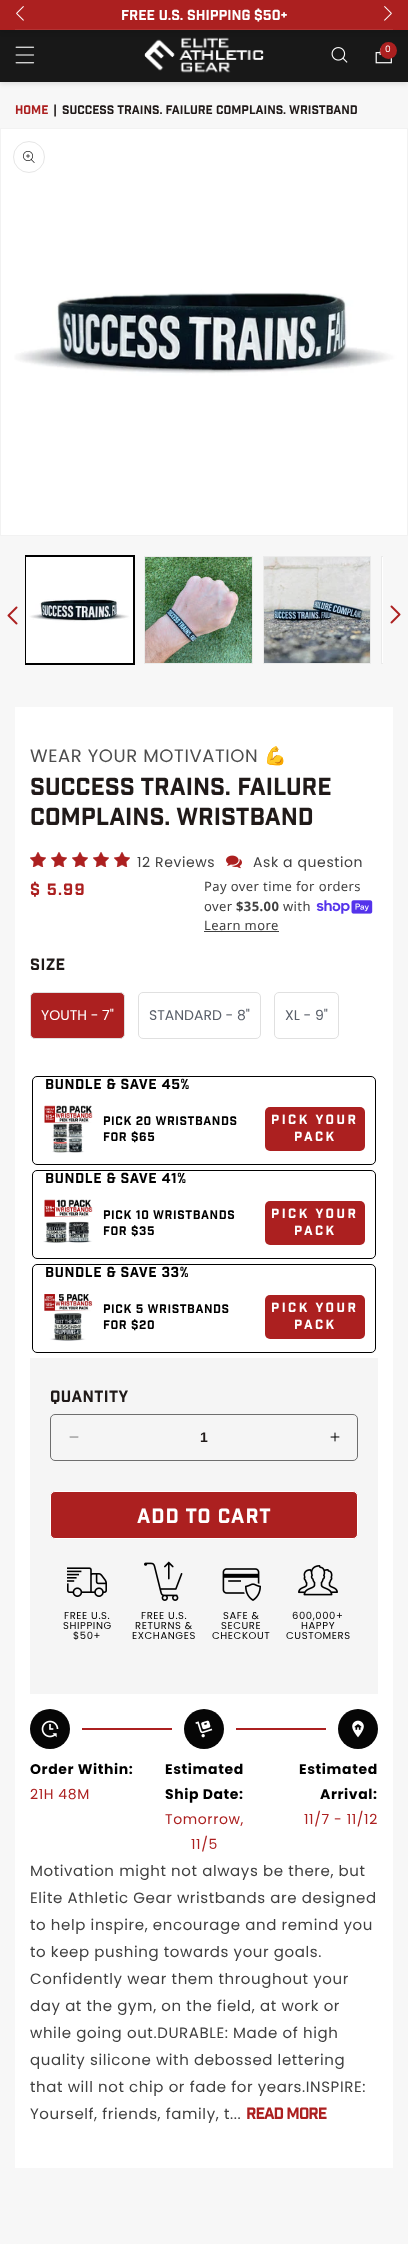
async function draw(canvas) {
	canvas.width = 408;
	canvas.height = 2244;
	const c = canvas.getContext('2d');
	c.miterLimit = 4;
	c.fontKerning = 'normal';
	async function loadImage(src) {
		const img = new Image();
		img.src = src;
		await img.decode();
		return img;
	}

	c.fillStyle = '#f7f7f7';
	c.fillRect(0, 0, 408, 2244);
	c.fillStyle = '#0000001a';
	c.filter = 'blur(2.5px)';
	c.beginPath();
	c.rect(0, 26, 408, 58);
	c.fill();
	c.filter = 'none';
	c.fillStyle = '#181818';
	c.fillRect(0, 30, 408, 52);
	c.drawImage(await loadImage('img4.png'), 144, 37, 120, 36);
	c.fillStyle = '#0000001a';
	c.filter = 'blur(2.5px)';
	c.beginPath();
	c.rect(0, 2, 408, 30);
	c.fill();
	c.filter = 'none';
	c.fillStyle = '#ac2020';
	c.fillRect(0, 0, 408, 30);
	c.drawImage(await loadImage('img1.png'), 16, 6, 8, 15);
	c.fillStyle = '#b33232';
	c.fillRect(15, 29, 378, 1);
	c.font = '14px "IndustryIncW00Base"';
	c.fillStyle = '#fff';
	c.fillText('FREE U.S. SHIPPING $50+', 121, 20);
	c.drawImage(await loadImage('img2.png'), 384, 6, 8, 15);
	c.drawImage(await loadImage('img3.png'), 15, 46, 20, 18);
	c.drawImage(await loadImage('img5.png'), 331, 47, 17, 16);
	c.drawImage(await loadImage('img6.png'), 375, 48, 17, 16);
	c.fillStyle = '#ac2020';
	c.beginPath();
	c.arc(388.5, 50.5, 8.5, 0, 2 * Math.PI);
	c.fill();
	c.letterSpacing = '0.6px';
	c.font = '9px Poppins';
	c.fillStyle = '#fff';
	c.fillText('0', 385, 52);
	c.letterSpacing = '0px';
	c.font = '12px "IndustryIncW00Base"';
	c.fillStyle = '#ac2020';
	c.fillText('Home', 15, 114);
	c.fillStyle = '#201a19';
	c.fillText('|', 53, 114);
	c.fillText('SUCCESS TRAINS. FAILURE COMPLAINS. Wristband', 62, 114);
	c.strokeStyle = '#f2f2f2';
	c.strokeRect(0.5, 128.5, 407, 407);
	c.drawImage(await loadImage('img7.png'), 1, 129, 406, 406);
	c.beginPath();
	c.arc(29, 157, 15.5, 0, 2 * Math.PI);
	c.strokeStyle = '#e6e6e6';
	c.stroke();
	c.drawImage(await loadImage('img8.png'), 23, 151, 12, 12);
	c.save();
	c.beginPath();
	c.rect(25, 551, 358, 118);
	c.clip();
	c.strokeStyle = '#000';
	c.strokeRect(24.5, 555.5, 110, 109);
	c.restore();
	c.strokeStyle = '#000';
	c.strokeRect(25.5, 556.5, 108, 107);
	c.drawImage(await loadImage('img9.png'), 26, 557, 107, 106);
	c.strokeStyle = '#ebebeb';
	c.strokeRect(144.5, 556.5, 108, 107);
	c.drawImage(await loadImage('img10.png'), 145, 557, 107, 106);
	c.strokeRect(263.5, 556.5, 107, 107);
	c.drawImage(await loadImage('img11.png'), 264, 557, 106, 106);
	c.save();
	c.beginPath();
	c.rect(25, 551, 358, 118);
	c.clip();
	c.strokeRect(381.5, 556.5, 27, 107);
	c.restore();
	c.fillStyle = '#fff';
	c.fillRect(382, 557, 1, 106);
	c.drawImage(await loadImage('img12.png'), 7, 606, 11, 19);
	c.drawImage(await loadImage('img13.png'), 390, 605, 11, 19);
	c.fillRect(15, 707, 378, 1461);
	c.letterSpacing = '0.6px';
	c.font = '18px Poppins';
	c.fillStyle = '#4d4d4d';
	c.fillText('WEAR YOUR MOTIVATION', 30, 762);
	c.font = '18px Noto Color Emoji';
	c.fillText('💪', 264, 762);
	c.letterSpacing = '0px';
	c.font = '24px "IndustryIncW00Base"';
	c.fillStyle = '#201a19';
	c.fillText('SUCCESS TRAINS. FAILURE', 30, 795);
	c.fillText('COMPLAINS. Wristband', 30, 825);
	c.drawImage(await loadImage('img14.png'), 30, 852, 16, 15);
	c.drawImage(await loadImage('img14.png'), 51, 852, 16, 15);
	c.drawImage(await loadImage('img14.png'), 72, 852, 16, 15);
	c.drawImage(await loadImage('img14.png'), 93, 852, 16, 15);
	c.drawImage(await loadImage('img14.png'), 114, 852, 16, 15);
	c.letterSpacing = '0.6px';
	c.font = '14px Poppins';
	c.fillStyle = '#404040';
	c.fillText('12 Reviews', 137, 867);
	c.drawImage(await loadImage('img15.png'), 226, 855, 16, 14);
	c.fillText('Ask a question', 253, 867);
	c.letterSpacing = '1.25px';
	c.font = '16px "IndustryIncW00Base"';
	c.fillStyle = '#ac2020';
	c.fillText('$ 5.99', 30, 895);
	c.letterSpacing = '0.4px';
	c.font = '13px Noto Sans';
	c.fillStyle = '#404040';
	c.fillText('Pay over time for orders', 204, 891);
	c.fillText('over', 204, 911);
	c.font = 'bold 13px Noto Sans';
	c.fillText('$35.00', 236, 911);
	c.font = '13px Noto Sans';
	c.fillText('with', 283, 911);
	c.drawImage(await loadImage('img16.png'), 316, 900, 57, 14);
	c.fillText('Learn more', 204, 930);
	c.fillRect(204, 931, 75, 1);
	c.font = '16px "IndustryIncW00Base"';
	c.fillStyle = '#201a19';
	c.fillText('Size', 30, 970);
	c.fillStyle = '#ac2020';
	c.beginPath();
	c.roundRect(30.5, 992.5, 94, 46, 4.5);
	c.fill();
	c.strokeStyle = '#e0e0e0';
	c.stroke();
	c.letterSpacing = '0px';
	c.font = '14px Poppins';
	c.fillStyle = '#fff';
	c.fillText('YOUTH - 7"', 41, 1020);
	c.beginPath();
	c.roundRect(138.5, 992.5, 122, 46, 4.5);
	c.stroke();
	c.fillStyle = '#595f69';
	c.fillText('STANDARD - 8"', 149, 1020);
	c.beginPath();
	c.roundRect(274.5, 992.5, 64, 46, 4.5);
	c.stroke();
	c.fillText('XL - 9"', 285, 1020);
	c.beginPath();
	c.roundRect(32.5, 1076.5, 343, 88, 4.5);
	c.strokeStyle = '#000';
	c.stroke();
	c.letterSpacing = '0.6px';
	c.font = '14px "IndustryIncW00Base"';
	c.fillStyle = '#000';
	c.fillText('BUNDLE & SAVE 45%', 45, 1089);
	c.drawImage(await loadImage('img17.png'), 44, 1105, 49, 48);
	c.font = '12px "IndustryIncW00Base"';
	c.fillText('PICK 20 WRISTBANDS', 103, 1125);
	c.fillText('FOR $65', 103, 1141);
	c.fillStyle = '#ac2020';
	c.beginPath();
	c.roundRect(265, 1107, 100, 44, 5);
	c.fill();
	c.letterSpacing = '2.5px';
	c.font = '13px "IndustryIncW00Base"';
	c.fillStyle = '#fff';
	c.fillText('PICK YOUR', 271, 1124);
	c.fillText('PACK', 294, 1141);
	c.beginPath();
	c.roundRect(32.5, 1170.5, 343, 88, 4.5);
	c.stroke();
	c.letterSpacing = '0.6px';
	c.font = '14px "IndustryIncW00Base"';
	c.fillStyle = '#000';
	c.fillText('BUNDLE & SAVE 41%', 45, 1183);
	c.drawImage(await loadImage('img18.png'), 43, 1199, 50, 44);
	c.font = '12px "IndustryIncW00Base"';
	c.fillText('PICK 10 WRISTBANDS', 103, 1219);
	c.fillText('FOR $35', 103, 1235);
	c.fillStyle = '#ac2020';
	c.beginPath();
	c.roundRect(265, 1201, 100, 44, 5);
	c.fill();
	c.letterSpacing = '2.5px';
	c.font = '13px "IndustryIncW00Base"';
	c.fillStyle = '#fff';
	c.fillText('PICK YOUR', 271, 1218);
	c.fillText('PACK', 294, 1235);
	c.beginPath();
	c.roundRect(32.5, 1264.5, 343, 88, 4.5);
	c.stroke();
	c.letterSpacing = '0.6px';
	c.font = '14px "IndustryIncW00Base"';
	c.fillStyle = '#000';
	c.fillText('BUNDLE & SAVE 33%', 45, 1277);
	c.drawImage(await loadImage('img19.png'), 44, 1294, 49, 47);
	c.font = '12px "IndustryIncW00Base"';
	c.fillText('PICK 5 WRISTBANDS', 103, 1313);
	c.fillText('FOR $20', 103, 1329);
	c.fillStyle = '#ac2020';
	c.beginPath();
	c.roundRect(265, 1295, 100, 44, 5);
	c.fill();
	c.letterSpacing = '2.5px';
	c.font = '13px "IndustryIncW00Base"';
	c.fillStyle = '#fff';
	c.fillText('PICK YOUR', 271, 1312);
	c.fillText('PACK', 294, 1329);
	c.fillStyle = '#f5f5f5';
	c.fillRect(30, 1358, 348, 336);
	c.letterSpacing = '0.4px';
	c.font = '16px "IndustryIncW00Base"';
	c.fillStyle = '#201a19';
	c.fillText('Quantity', 50, 1402);
	c.drawImage(await loadImage('img20.png'), 69, 1436, 10, 2);
	c.drawImage(await loadImage('img21.png'), 330, 1432, 10, 10);
	c.beginPath();
	c.roundRect(50.5, 1414.5, 307, 46, 4.5);
	c.strokeStyle = '#6e6e6e';
	c.stroke();
	c.letterSpacing = '0px';
	c.font = 'bold 14px Liberation Sans';
	c.fillText('1', 200, 1442);
	c.fillStyle = '#ac2020';
	c.beginPath();
	c.roundRect(50.5, 1491.5, 307, 47, 4.5);
	c.fill();
	c.strokeStyle = '#fff';
	c.stroke();
	c.letterSpacing = '1px';
	c.font = '20px "IndustryIncW00Base"';
	c.fillStyle = '#fff';
	c.fillText('ADD TO CART', 137, 1523);
	c.drawImage(await loadImage('img22.png'), 67, 1567, 40, 30);
	c.letterSpacing = '0.6px';
	c.font = '10px Poppins';
	c.fillStyle = '#000';
	for (const [text, x, y] of [
		['FREE U.S.', 64, 1619],
		['SHIPPING', 63, 1629],
		['$50+', 73, 1639],
	]) {
		c.fillText(text, x, y);
	}
	c.drawImage(await loadImage('img23.png'), 144, 1561, 39, 40);
	for (const [text, x, y] of [
		['FREE U.S.', 141, 1619],
		['RETURNS &', 135, 1629],
		['EXCHANGES', 132, 1639],
	]) {
		c.fillText(text, x, y);
	}
	c.drawImage(await loadImage('img24.png'), 222, 1568, 39, 33);
	for (const [text, x, y] of [
		['SAFE &', 223, 1619],
		['SECURE', 221, 1629],
		['CHECKOUT', 212, 1639],
	]) {
		c.fillText(text, x, y);
	}
	c.drawImage(await loadImage('img25.png'), 298, 1565, 40, 31);
	for (const [text, x, y] of [
		['600,000+', 292, 1619],
		['HAPPY', 301, 1629],
		['CUSTOMERS', 286, 1639],
	]) {
		c.fillText(text, x, y);
	}
	c.fillStyle = '#060606';
	c.beginPath();
	c.arc(50, 1729, 20, 0, 2 * Math.PI);
	c.fill();
	c.drawImage(await loadImage('img26.png'), 41, 1720, 18, 18);
	c.fillStyle = '#ac2020';
	c.fillRect(82, 1728, 90, 2);
	c.fillStyle = '#060606';
	c.beginPath();
	c.arc(204, 1729, 20, 0, 2 * Math.PI);
	c.fill();
	c.drawImage(await loadImage('img27.png'), 195, 1720, 18, 18);
	c.fillStyle = '#ac2020';
	c.fillRect(236, 1728, 90, 2);
	c.fillStyle = '#060606';
	c.beginPath();
	c.arc(358, 1729, 20, 0, 2 * Math.PI);
	c.fill();
	c.drawImage(await loadImage('img28.png'), 352, 1720, 12, 18);
	c.font = 'bold 14px Poppins';
	c.fillStyle = '#000';
	c.fillText('Order Within:', 30, 1774);
	c.font = '14px Poppins';
	c.fillStyle = '#ac2020';
	c.fillText('21H 48M', 30, 1799);
	c.font = 'bold 14px Poppins';
	c.fillStyle = '#000';
	c.fillText('Estimated', 165, 1774);
	c.fillText('Ship Date:', 165, 1799);
	c.font = '14px Poppins';
	c.fillStyle = '#ac2020';
	c.fillText('Tomorrow,', 165, 1824);
	c.fillText('11/5', 191, 1849);
	c.font = 'bold 14px Poppins';
	c.fillStyle = '#000';
	c.fillText('Estimated', 299, 1774);
	c.fillText('Arrival:', 320, 1799);
	c.font = '14px Poppins';
	c.fillStyle = '#ac2020';
	c.fillText('11/7 - 11/12', 304, 1824);
	c.font = '15px Poppins';
	c.fillStyle = '#404040';
	for (const [text, x, y] of [
		['Motivation might not always be there, but', 30, 1876],
		['Elite Athletic Gear wristbands are designed', 30, 1903],
		['to help inspire, encourage and remind you', 30, 1930],
		['to keep pushing towards your goals.', 30, 1957],
		['Confidently wear them throughout your', 30, 1984],
		['day at the gym, on the field, at work or', 30, 2011],
		['while going out.DURABLE: Made of high', 30, 2038],
		['quality silicone with debossed lettering', 30, 2065],
		['that will not chip or fade for years.INSPIRE:', 30, 2092],
		['Yourself, friends, family, t...', 30, 2119],
	]) {
		c.fillText(text, x, y);
	}
	c.letterSpacing = '-1px';
	c.font = '16px "IndustryIncW00Base"';
	c.fillStyle = '#ac2020';
	c.fillText('READ MORE', 246, 2119);
}

draw(document.querySelector('canvas'));
